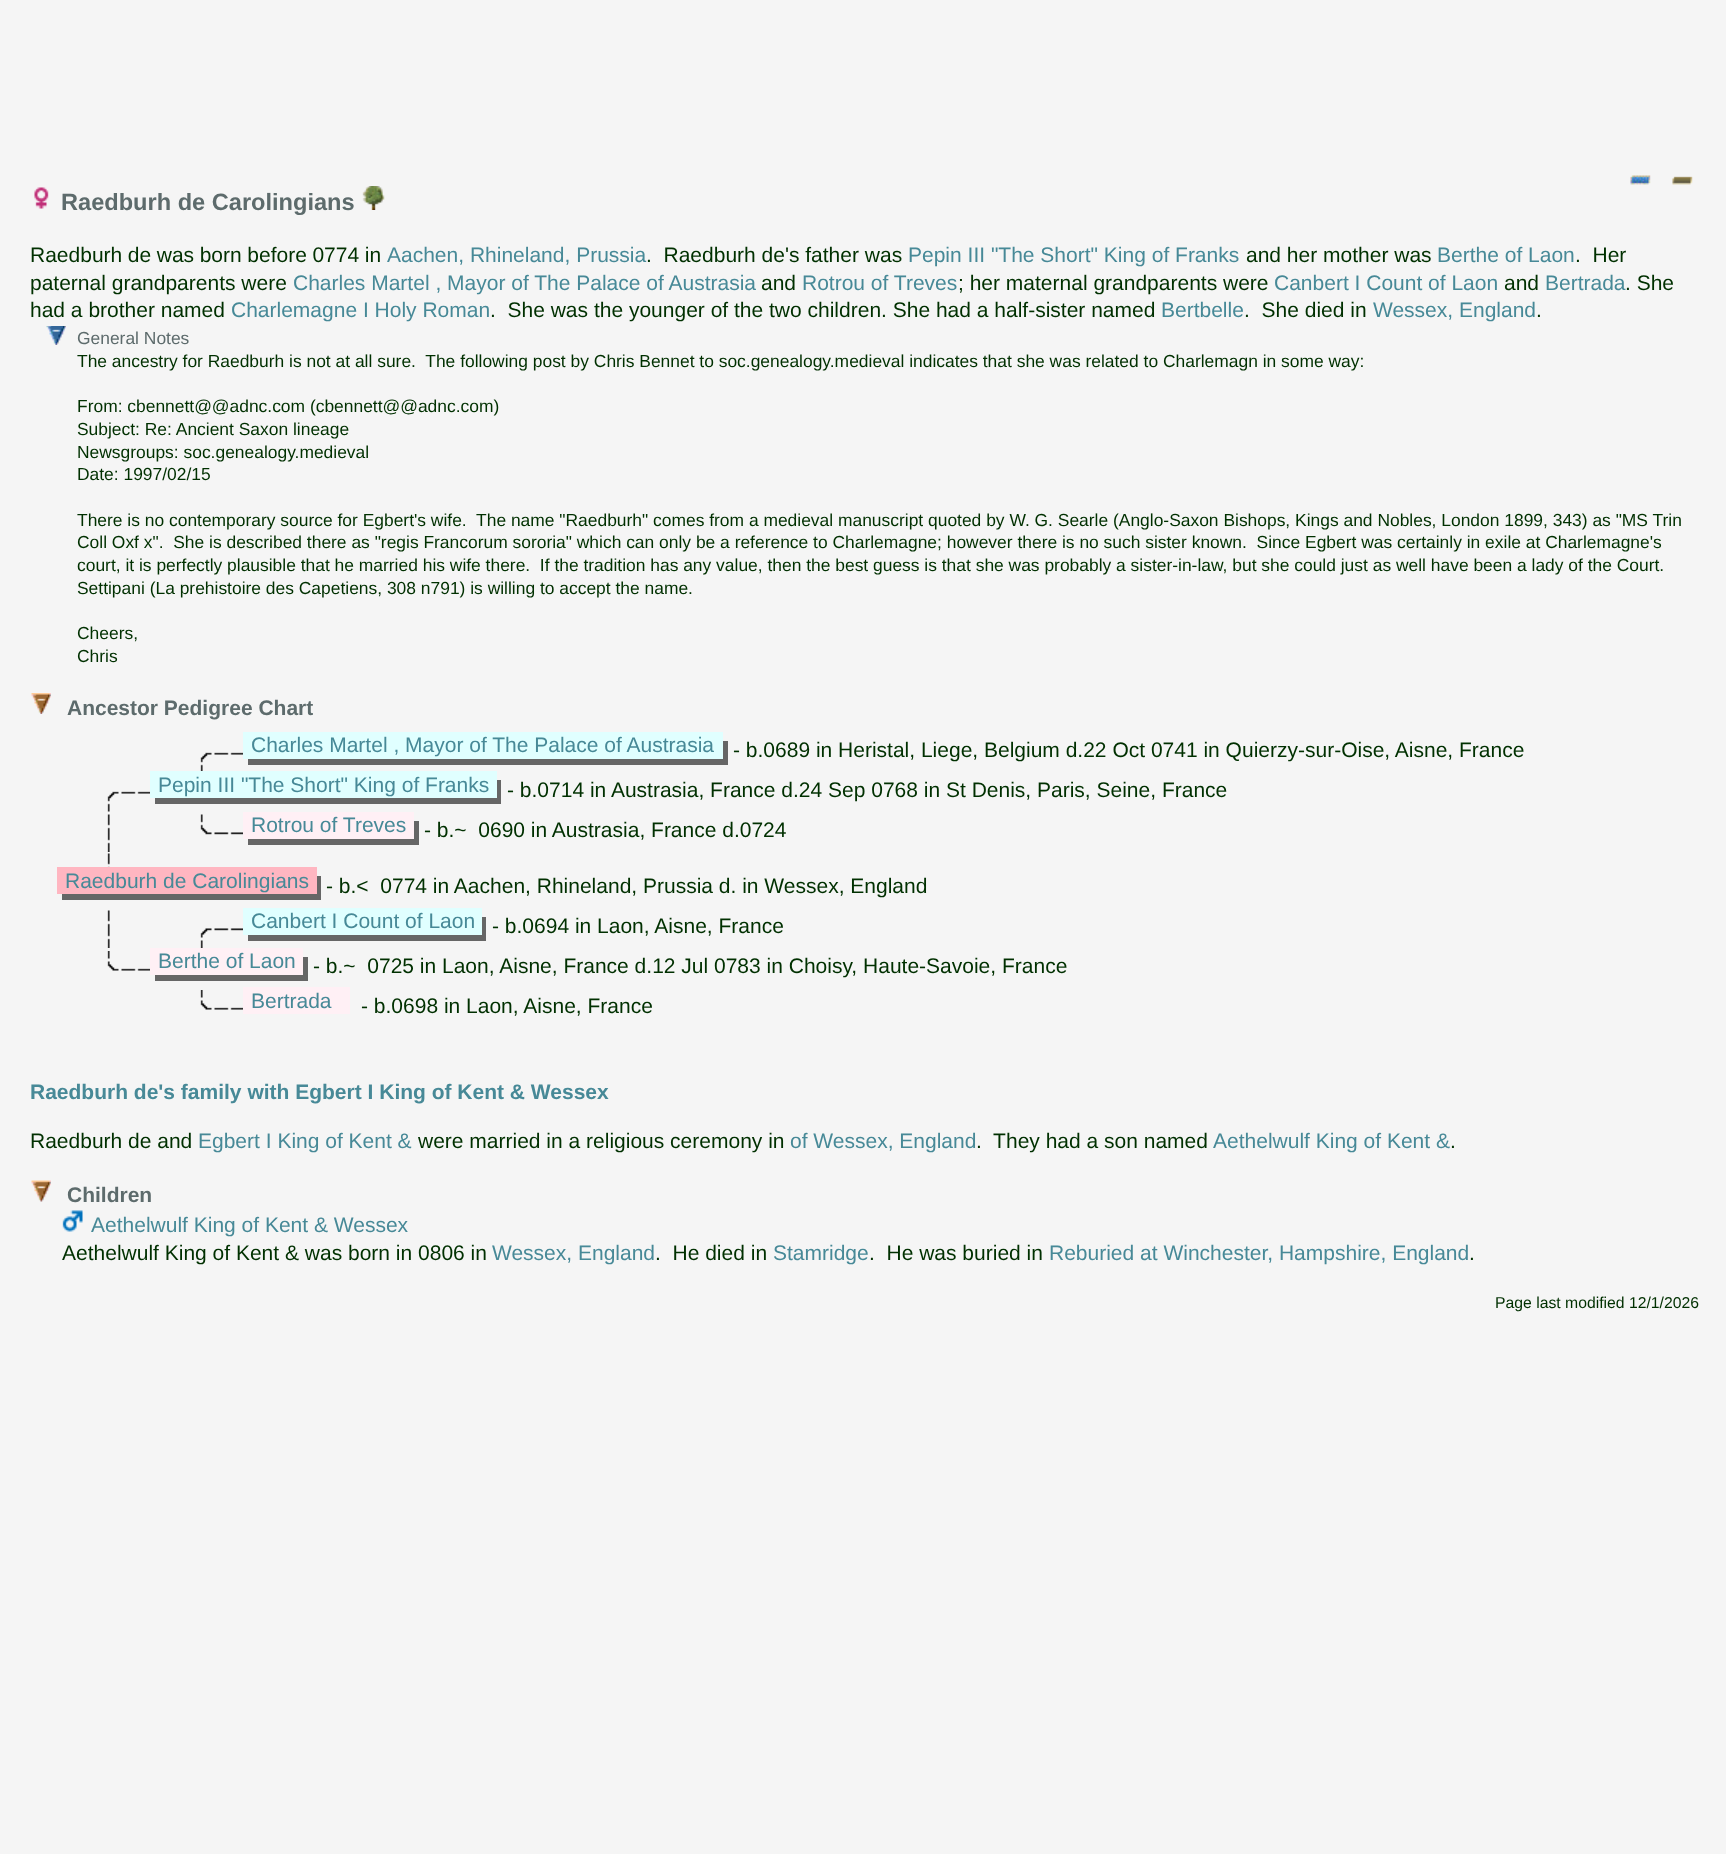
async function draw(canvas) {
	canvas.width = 1726;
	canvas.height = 1854;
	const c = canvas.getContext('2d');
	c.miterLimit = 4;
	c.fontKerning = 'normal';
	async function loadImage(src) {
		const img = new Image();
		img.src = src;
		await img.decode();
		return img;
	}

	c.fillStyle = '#f5f5f5';
	c.fillRect(0, 0, 1726, 1854);
	c.drawImage(await loadImage('img1.png'), 1630, 175, 21, 10);
	c.drawImage(await loadImage('img2.png'), 1672, 176, 21, 9);
	c.drawImage(await loadImage('img3.png'), 34, 187, 15, 22);
	c.font = 'bold 23.6px Liberation Sans';
	c.fillStyle = '#5d6b6c';
	c.fillText('Raedburh de Carolingians', 61, 210);
	c.drawImage(await loadImage('img4.png'), 362, 186, 23, 24);
	c.wordSpacing = '-0.25px';
	c.font = '21px Liberation Sans';
	c.fillStyle = '#003000';
	c.fillText('Raedburh de was born before 0774 in', 30, 262);
	c.wordSpacing = '0px';
	c.fillStyle = '#478997';
	c.fillText('Aachen, Rhineland, Prussia', 387, 262);
	c.fillStyle = '#003000';
	c.fillText('.  Raedburh de\'s father was', 646, 262);
	c.fillStyle = '#478997';
	c.fillText('Pepin III "The Short" King of Franks', 908, 262);
	c.fillStyle = '#003000';
	c.fillText('and her mother was', 1246, 262);
	c.fillStyle = '#478997';
	c.fillText('Berthe of Laon', 1437, 262);
	c.fillStyle = '#003000';
	c.fillText('.  Her', 1575, 262);
	c.fillText('paternal grandparents were', 30, 290);
	c.fillStyle = '#478997';
	c.fillText('Charles Martel , Mayor of The Palace of Austrasia', 293, 290);
	c.fillStyle = '#003000';
	c.fillText('and', 761, 290);
	c.fillStyle = '#478997';
	c.fillText('Rotrou of Treves', 802, 290);
	c.fillStyle = '#003000';
	c.fillText('; her maternal grandparents were', 958, 290);
	c.fillStyle = '#478997';
	c.fillText('Canbert I Count of Laon', 1274, 290);
	c.fillStyle = '#003000';
	c.fillText('and', 1504, 290);
	c.fillStyle = '#478997';
	c.fillText('Bertrada', 1545, 290);
	c.fillStyle = '#003000';
	c.fillText('. She', 1625, 290);
	c.fillText('had a brother named', 30, 317);
	c.fillStyle = '#478997';
	c.fillText('Charlemagne I Holy Roman', 231, 317);
	c.fillStyle = '#003000';
	c.fillText('.  She was the younger of the two children. She had a half-sister named', 490, 317);
	c.fillStyle = '#478997';
	c.fillText('Bertbelle', 1161, 317);
	c.fillStyle = '#003000';
	c.fillText('.  She died in', 1244, 317);
	c.fillStyle = '#478997';
	c.fillText('Wessex, England', 1373, 317);
	c.fillStyle = '#003000';
	c.fillText('.', 1536, 317);
	c.drawImage(await loadImage('img5.png'), 46, 326, 20, 19);
	c.font = '17.43px Liberation Sans';
	c.fillStyle = '#5d6b6c';
	c.fillText('General Notes', 77, 344);
	c.fillStyle = '#003000';
	for (const [text, x, y] of [
		['The ancestry for Raedburh is not at all sure.  The following post by Chris Bennet to soc.genealogy.medieval indicates that she was related to Charlemagn in some way:', 77, 367],
		['From: cbennett@@adnc.com (cbennett@@adnc.com)', 77, 412],
		['Subject: Re: Ancient Saxon lineage', 77, 435],
		['Newsgroups: soc.genealogy.medieval', 77, 458],
		['Date: 1997/02/15', 77, 480],
		['There is no contemporary source for Egbert\'s wife.  The name "Raedburh" comes from a medieval manuscript quoted by W. G. Searle (Anglo-Saxon Bishops, Kings and Nobles, London 1899, 343) as "MS Trin', 77, 526],
		['Coll Oxf x".  She is described there as "regis Francorum sororia" which can only be a reference to Charlemagne; however there is no such sister known.  Since Egbert was certainly in exile at Charlemagne\'s', 77, 548],
		['court, it is perfectly plausible that he married his wife there.  If the tradition has any value, then the best guess is that she was probably a sister-in-law, but she could just as well have been a lady of the Court.', 77, 571],
		['Settipani (La prehistoire des Capetiens, 308 n791) is willing to accept the name.', 77, 594],
		['Cheers,', 77, 639],
		['Chris', 77, 662],
	]) {
		c.fillText(text, x, y);
	}
	c.drawImage(await loadImage('img6.png'), 31, 693, 20, 21);
	c.font = 'bold 21px Liberation Sans';
	c.fillStyle = '#5d6b6c';
	c.fillText('Ancestor Pedigree Chart', 67, 715);
	c.drawImage(await loadImage('img7.png'), 200, 752, 43, 19);
	c.fillStyle = '#666';
	c.fillRect(248, 741, 480, 24);
	c.fillStyle = '#e0ffff';
	c.fillRect(243, 732, 480, 27);
	c.font = '21px Liberation Sans';
	c.fillStyle = '#478997';
	c.fillText('Charles Martel , Mayor of The Palace of Austrasia', 251, 752);
	c.fillStyle = '#003000';
	c.fillText('- b.0689 in Heristal, Liege, Belgium d.22 Oct 0741 in Quierzy-sur-Oise, Aisne, France', 733, 757);
	c.drawImage(await loadImage('img8.png'), 107, 791, 43, 21);
	c.fillStyle = '#666';
	c.fillRect(155, 780, 346, 24);
	c.fillStyle = '#e0ffff';
	c.fillRect(150, 771, 347, 27);
	c.fillStyle = '#478997';
	c.fillText('Pepin III "The Short" King of Franks', 158, 792);
	c.fillStyle = '#003000';
	c.fillText('- b.0714 in Austrasia, France d.24 Sep 0768 in St Denis, Paris, Seine, France', 507, 797);
	c.drawImage(await loadImage('img9.png'), 107, 814, 3, 38);
	c.drawImage(await loadImage('img10.png'), 200, 814, 43, 21);
	c.fillStyle = '#666';
	c.fillRect(248, 821, 171, 24);
	c.fillStyle = '#fff0f5';
	c.fillRect(243, 812, 171, 27);
	c.fillStyle = '#478997';
	c.fillText('Rotrou of Treves', 251, 832);
	c.fillStyle = '#003000';
	c.fillText('- b.~  0690 in Austrasia, France d.0724', 424, 837);
	c.drawImage(await loadImage('img11.png'), 107, 853, 3, 14);
	c.fillStyle = '#666';
	c.fillRect(62, 876, 259, 24);
	c.fillStyle = '#ffb6c1';
	c.fillRect(57, 867, 260, 27);
	c.fillStyle = '#478997';
	c.fillText('Raedburh de Carolingians', 65, 888);
	c.fillStyle = '#003000';
	c.fillText('- b.<  0774 in Aachen, Rhineland, Prussia d. in Wessex, England', 326, 893);
	c.drawImage(await loadImage('img9.png'), 107, 910, 3, 38);
	c.drawImage(await loadImage('img12.png'), 200, 928, 43, 20);
	c.fillStyle = '#666';
	c.fillRect(248, 917, 238, 24);
	c.fillStyle = '#e0ffff';
	c.fillRect(243, 908, 239, 27);
	c.fillStyle = '#478997';
	c.fillText('Canbert I Count of Laon', 251, 928);
	c.fillStyle = '#003000';
	c.fillText('- b.0694 in Laon, Aisne, France', 492, 933);
	c.drawImage(await loadImage('img13.png'), 107, 951, 43, 20);
	c.fillStyle = '#666';
	c.fillRect(155, 957, 153, 24);
	c.fillStyle = '#fff0f5';
	c.fillRect(150, 948, 153, 27);
	c.fillStyle = '#478997';
	c.fillText('Berthe of Laon', 158, 968);
	c.fillStyle = '#003000';
	c.fillText('- b.~  0725 in Laon, Aisne, France d.12 Jul 0783 in Choisy, Haute-Savoie, France', 313, 973);
	c.drawImage(await loadImage('img13.png'), 200, 990, 43, 20);
	c.fillStyle = '#fff0f5';
	c.fillRect(243, 987, 107, 27);
	c.fillStyle = '#478997';
	c.fillText('Bertrada', 251, 1008);
	c.fillStyle = '#003000';
	c.fillText('- b.0698 in Laon, Aisne, France', 361, 1013);
	c.font = 'bold 21px Liberation Sans';
	c.fillStyle = '#478997';
	c.fillText('Raedburh de\'s family with Egbert I King of Kent & Wessex', 30, 1099);
	c.font = '21px Liberation Sans';
	c.fillStyle = '#003000';
	c.fillText('‌Raedburh de and', 30, 1148);
	c.fillStyle = '#478997';
	c.fillText('Egbert I King of Kent &', 198, 1148);
	c.fillStyle = '#003000';
	c.fillText('were married in a religious ceremony in', 418, 1148);
	c.fillStyle = '#478997';
	c.fillText('of Wessex, England', 790, 1148);
	c.fillStyle = '#003000';
	c.fillText('.  They had a son named', 976, 1148);
	c.fillStyle = '#478997';
	c.fillText('Aethelwulf King of Kent &', 1213, 1148);
	c.fillStyle = '#003000';
	c.fillText('.', 1450, 1148);
	c.drawImage(await loadImage('img14.png'), 31, 1180, 20, 22);
	c.font = 'bold 21px Liberation Sans';
	c.fillStyle = '#5d6b6c';
	c.fillText('Children', 67, 1202);
	c.drawImage(await loadImage('img15.png'), 62, 1210, 21, 22);
	c.font = '21px Liberation Sans';
	c.fillStyle = '#478997';
	c.fillText('Aethelwulf King of Kent & Wessex', 91, 1232);
	c.fillStyle = '#003000';
	c.fillText('Aethelwulf King of Kent & was born in 0806 in', 62, 1260);
	c.fillStyle = '#478997';
	c.fillText('Wessex, England', 492, 1260);
	c.fillStyle = '#003000';
	c.fillText('.  He died in', 655, 1260);
	c.fillStyle = '#478997';
	c.fillText('Stamridge', 773, 1260);
	c.fillStyle = '#003000';
	c.fillText('.  He was buried in', 869, 1260);
	c.fillStyle = '#478997';
	c.fillText('Reburied at Winchester, Hampshire, England', 1049, 1260);
	c.fillStyle = '#003000';
	c.fillText('.', 1469, 1260);
	c.font = '15.75px Liberation Sans';
	c.fillText('Page last modified 12/1/2026', 1495, 1308);
}

draw(document.querySelector('canvas'));
